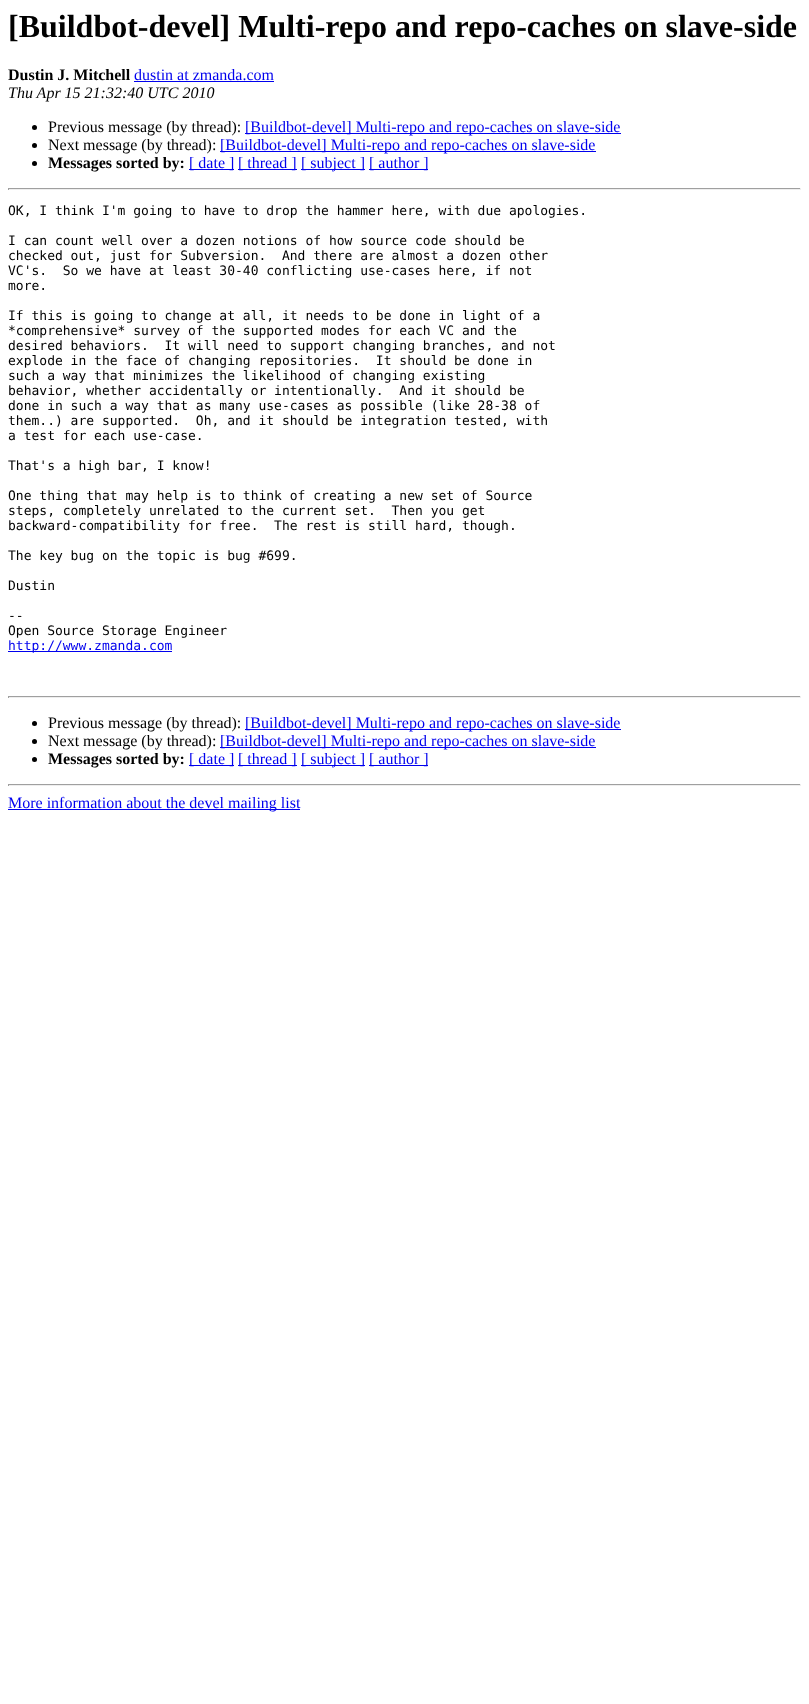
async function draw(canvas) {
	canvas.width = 809;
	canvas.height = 1704;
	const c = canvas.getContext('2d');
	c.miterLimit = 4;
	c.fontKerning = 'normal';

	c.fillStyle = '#fff';
	c.fillRect(0, 0, 809, 1704);
	c.font = 'bold 32px Liberation Serif';
	c.fillStyle = '#000';
	c.fillText('[Buildbot-devel] Multi-repo and repo-caches on slave-side', 8, 37);
	c.font = 'bold 16px Liberation Serif';
	c.fillText('Dustin J. Mitchell', 8, 80);
	c.font = '16px Liberation Serif';
	c.fillStyle = '#00e';
	c.fillText('dustin at zmanda.com', 134, 80);
	c.fillRect(134, 81, 140, 1);
	c.font = 'italic 16px Liberation Serif';
	c.fillStyle = '#000';
	c.fillText('Thu Apr 15 21:32:40 UTC 2010', 8, 98);
	c.beginPath();
	c.arc(34.5, 127.5, 2.5, 0, 2 * Math.PI);
	c.fill();
	c.font = '16px Liberation Serif';
	c.fillText('Previous message (by thread):', 48, 132);
	c.fillStyle = '#00e';
	c.fillRect(245, 133, 376, 1);
	c.fillText('[Buildbot-devel] Multi-repo and repo-caches on slave-side', 245, 132);
	c.fillStyle = '#000';
	c.beginPath();
	c.arc(34.5, 145.5, 2.5, 0, 2 * Math.PI);
	c.fill();
	c.fillText('Next message (by thread):', 48, 150);
	c.fillStyle = '#00e';
	c.fillRect(220, 151, 376, 1);
	c.fillText('[Buildbot-devel] Multi-repo and repo-caches on slave-side', 220, 150);
	c.fillStyle = '#000';
	c.beginPath();
	c.arc(34.5, 163.5, 2.5, 0, 2 * Math.PI);
	c.fill();
	c.font = 'bold 16px Liberation Serif';
	c.fillText('Messages sorted by:', 48, 168);
	c.fillStyle = '#00e';
	c.fillRect(189, 169, 45, 1);
	c.font = '16px Liberation Serif';
	c.fillText('[ date ]', 189, 168);
	c.fillRect(238, 169, 59, 1);
	c.fillText('[ thread ]', 238, 168);
	c.fillRect(301, 169, 64, 1);
	c.fillText('[ subject ]', 301, 168);
	c.fillRect(369, 169, 59, 1);
	c.fillText('[ author ]', 369, 168);
	for (const [x, y, w, h, color] of [
		[8, 188, 793, 1, '#9f9f9f'],
		[800, 188, 1, 2, '#eee'],
		[8, 189, 793, 1, '#eee'],
		[8, 188, 1, 2, '#9f9f9f'],
	]) {
		c.fillStyle = color;
		c.fillRect(x, y, w, h);
	}
	c.font = '13px DejaVu Sans Mono';
	c.fillStyle = '#000';
	for (const [text, x, y] of [
		['OK, I think I\'m going to have to drop the hammer here, with due apologies.', 8, 215],
		['I can count well over a dozen notions of how source code should be', 8, 245],
		['checked out, just for Subversion.  And there are almost a dozen other', 8, 260],
		['VC\'s.  So we have at least 30-40 conflicting use-cases here, if not', 8, 275],
		['more.', 8, 290],
		['If this is going to change at all, it needs to be done in light of a', 8, 320],
		['*comprehensive* survey of the supported modes for each VC and the', 8, 335],
		['desired behaviors.  It will need to support changing branches, and not', 8, 350],
		['explode in the face of changing repositories.  It should be done in', 8, 365],
		['such a way that minimizes the likelihood of changing existing', 8, 380],
		['behavior, whether accidentally or intentionally.  And it should be', 8, 395],
		['done in such a way that as many use-cases as possible (like 28-38 of', 8, 410],
		['them..) are supported.  Oh, and it should be integration tested, with', 8, 425],
		['a test for each use-case.', 8, 440],
		['That\'s a high bar, I know!', 8, 470],
		['One thing that may help is to think of creating a new set of Source', 8, 500],
		['steps, completely unrelated to the current set.  Then you get', 8, 515],
		['backward-compatibility for free.  The rest is still hard, though.', 8, 530],
		['The key bug on the topic is bug #699.', 8, 560],
		['Dustin', 8, 590],
		['--', 8, 620],
		['Open Source Storage Engineer', 8, 635],
	]) {
		c.fillText(text, x, y);
	}
	c.fillStyle = '#00e';
	c.fillRect(8, 651, 164, 1);
	c.fillText('http://www.zmanda.com', 8, 650);
	for (const [x, y, w, h, color] of [
		[8, 696, 793, 1, '#9f9f9f'],
		[800, 696, 1, 2, '#eee'],
		[8, 697, 793, 1, '#eee'],
		[8, 696, 1, 2, '#9f9f9f'],
	]) {
		c.fillStyle = color;
		c.fillRect(x, y, w, h);
	}
	c.fillStyle = '#000';
	c.beginPath();
	c.arc(34.5, 723.5, 2.5, 0, 2 * Math.PI);
	c.fill();
	c.font = '16px Liberation Serif';
	c.fillText('Previous message (by thread):', 48, 728);
	c.fillStyle = '#00e';
	c.fillRect(245, 729, 376, 1);
	c.fillText('[Buildbot-devel] Multi-repo and repo-caches on slave-side', 245, 728);
	c.fillStyle = '#000';
	c.beginPath();
	c.arc(34.5, 741.5, 2.5, 0, 2 * Math.PI);
	c.fill();
	c.fillText('Next message (by thread):', 48, 746);
	c.fillStyle = '#00e';
	c.fillRect(220, 747, 376, 1);
	c.fillText('[Buildbot-devel] Multi-repo and repo-caches on slave-side', 220, 746);
	c.fillStyle = '#000';
	c.beginPath();
	c.arc(34.5, 759.5, 2.5, 0, 2 * Math.PI);
	c.fill();
	c.font = 'bold 16px Liberation Serif';
	c.fillText('Messages sorted by:', 48, 764);
	c.fillStyle = '#00e';
	c.fillRect(189, 765, 45, 1);
	c.font = '16px Liberation Serif';
	c.fillText('[ date ]', 189, 764);
	c.fillRect(238, 765, 59, 1);
	c.fillText('[ thread ]', 238, 764);
	c.fillRect(301, 765, 64, 1);
	c.fillText('[ subject ]', 301, 764);
	c.fillRect(369, 765, 59, 1);
	c.fillText('[ author ]', 369, 764);
	for (const [x, y, w, h, color] of [
		[8, 784, 793, 1, '#9f9f9f'],
		[800, 784, 1, 2, '#eee'],
		[8, 785, 793, 1, '#eee'],
		[8, 784, 1, 2, '#9f9f9f'],
		[8, 809, 292, 1, '#00e'],
	]) {
		c.fillStyle = color;
		c.fillRect(x, y, w, h);
	}
	c.fillText('More information about the devel mailing list', 8, 808);
}

draw(document.querySelector('canvas'));
